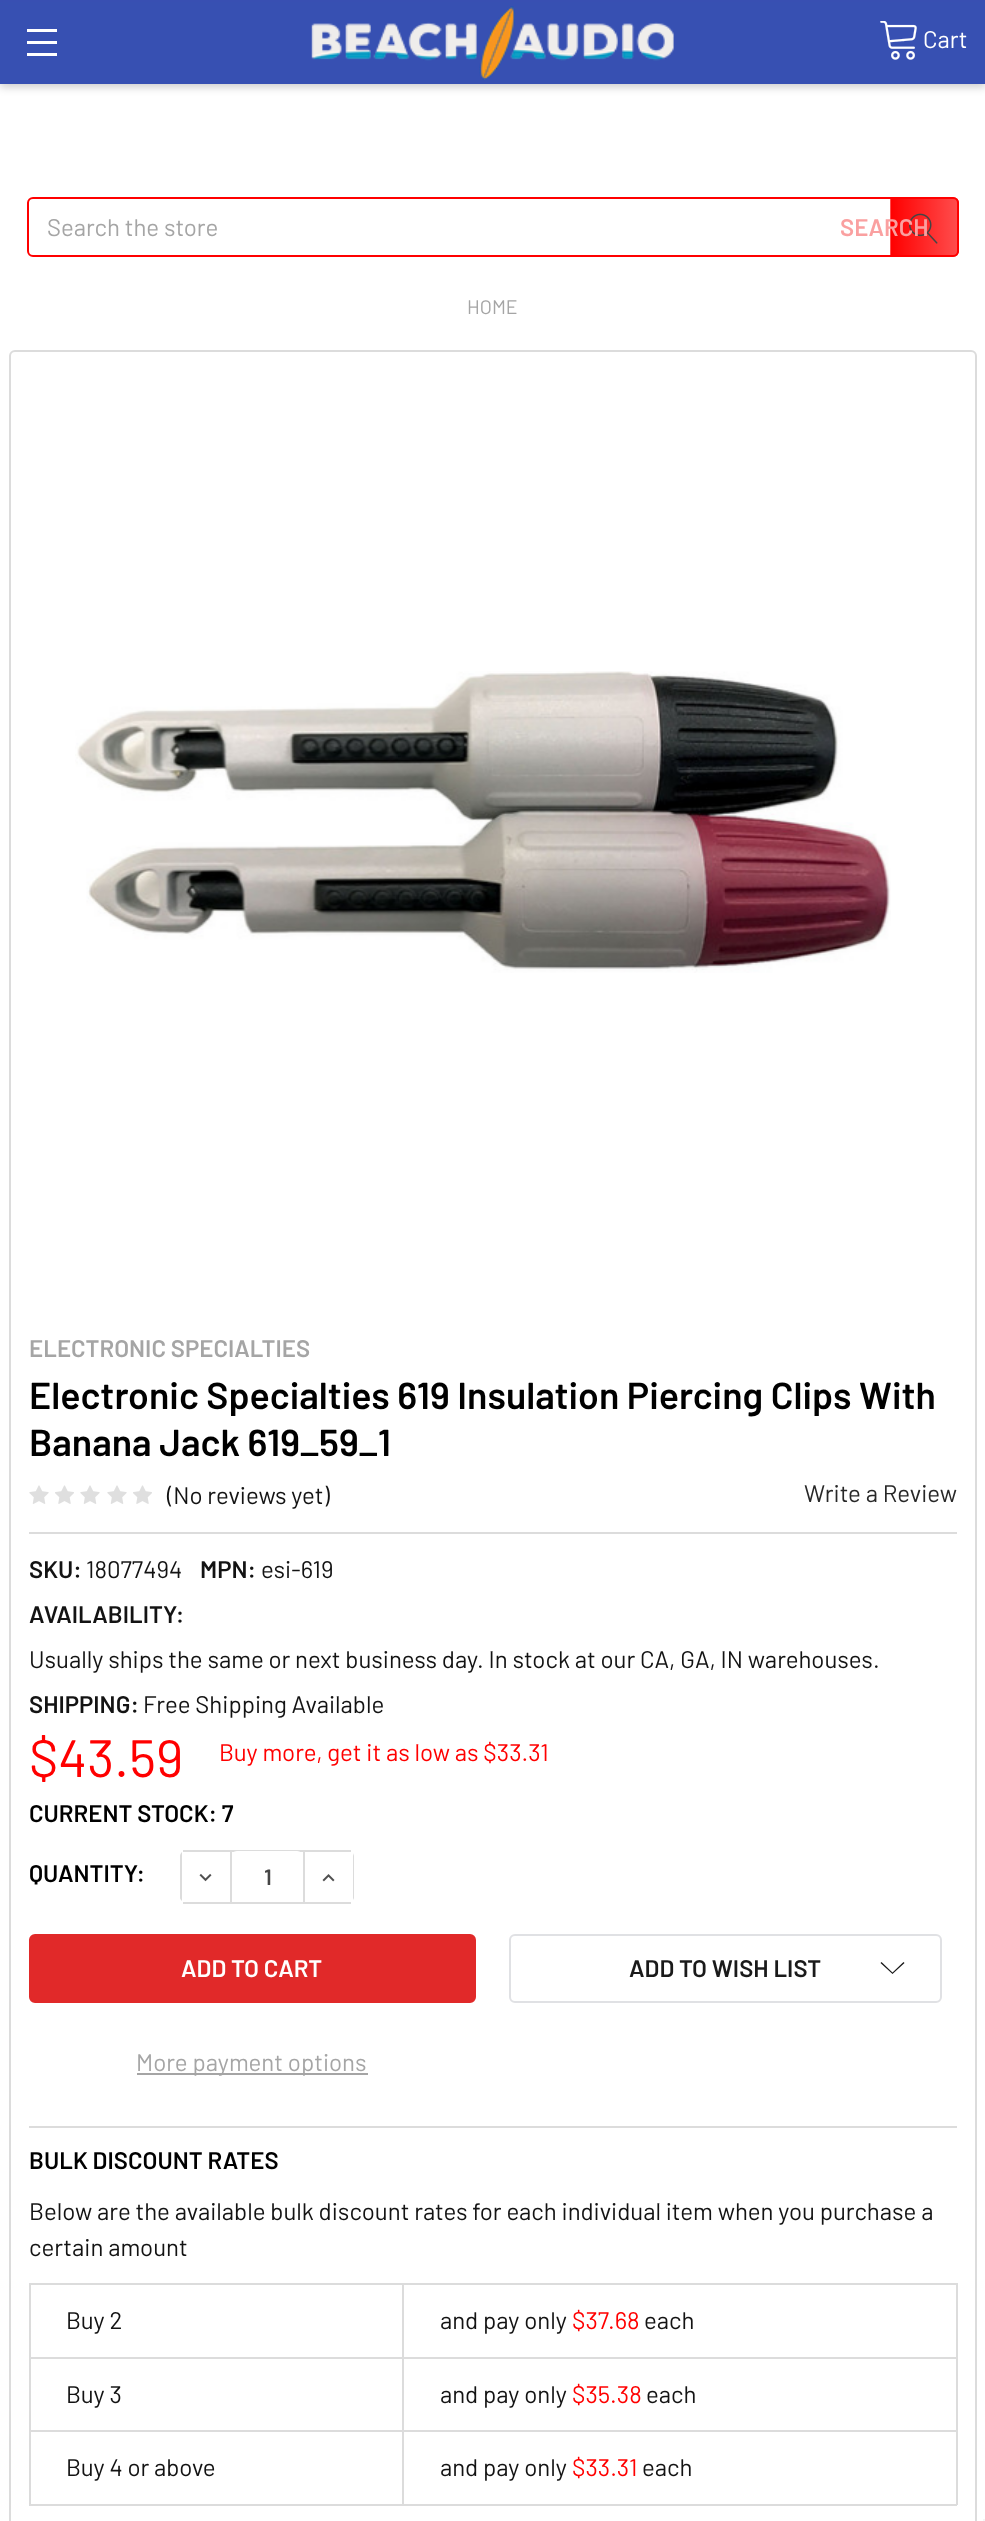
async function draw(canvas) {
	canvas.width = 985;
	canvas.height = 2521;
	const c = canvas.getContext('2d');
	c.miterLimit = 4;
	c.fontKerning = 'normal';
	async function loadImage(src) {
		const img = new Image();
		img.src = src;
		await img.decode();
		return img;
	}
	let gradient;

	c.fillStyle = '#fff';
	c.fillRect(0, 0, 985, 2521);
	c.fillStyle = '#00000033';
	c.filter = 'blur(4px)';
	c.beginPath();
	c.rect(0, 3, 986, 84);
	c.fill();
	c.filter = 'none';
	for (const [x, y, w, h, color] of [
		[0, 2, 985, 82, '#3750b2'],
		[0, 0, 985, 2, '#384fb2'],
		[27, 41, 30, 3, '#fff'],
		[27, 29, 30, 3, '#fff'],
		[27, 53, 30, 3, '#fff'],
	]) {
		c.fillStyle = color;
		c.fillRect(x, y, w, h);
	}
	c.drawImage(await loadImage('img1.png'), 311, 6, 363, 74);
	c.drawImage(await loadImage('img2.png'), 880, 21, 37, 39);
	c.font = '24px Barlow';
	c.fillText('Cart', 923, 48);
	c.beginPath();
	c.roundRect(28, 198, 930, 58, 5);
	c.strokeStyle = '#f00';
	c.lineWidth = 2;
	c.stroke();
	gradient = c.createLinearGradient(825, 227, 891, 227);
	gradient.addColorStop(0, '#f00');
	gradient.addColorStop(1, '#ff0000b3');
	c.fillStyle = gradient;
	c.fillRect(890, 197, 1, 60);
	c.save();
	c.beginPath();
	c.roundRect(890, 197, 69, 60, [0, 6, 6, 0]);
	c.clip();
	gradient = c.createLinearGradient(891, 227, 957, 227);
	gradient.addColorStop(0, '#f00');
	gradient.addColorStop(1, '#ff0000b3');
	c.fillStyle = gradient;
	c.fillRect(891, 197, 66, 60);
	gradient = c.createLinearGradient(957, 227, 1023, 227);
	gradient.addColorStop(0, '#f00');
	gradient.addColorStop(1, '#ff0000b3');
	c.fillStyle = gradient;
	c.fillRect(957, 197, 2, 60);
	c.restore();
	c.drawImage(await loadImage('img3.png'), 909, 213, 29, 31);
	c.fillStyle = '#a5a5a5';
	c.fillText('Search the store', 47, 236);
	c.font = '600 24px Barlow';
	c.fillStyle = '#faa0a0';
	c.fillText('SEARCH', 840, 236);
	c.font = '19.5px Barlow';
	c.fillStyle = '#a5a5a5';
	c.fillText('HOME', 467, 314);
	c.beginPath();
	c.roundRect(10, 351, 966, 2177, 5);
	c.strokeStyle = '#dcdcdc';
	c.stroke();
	c.drawImage(await loadImage('img4.png'), 75, 671, 816, 302);
	c.font = '600 24px Barlow';
	c.fillText('ELECTRONIC SPECIALTIES', 29, 1357);
	c.font = '600 37.5px Barlow';
	c.fillStyle = '#000';
	c.fillText('Electronic Specialties 619 Insulation Piercing Clips With', 29, 1409);
	c.fillText('Banana Jack 619_59_1', 29, 1456);
	c.drawImage(await loadImage('img5.png'), 29, 1485, 20, 19);
	c.drawImage(await loadImage('img6.png'), 55, 1485, 19, 19);
	c.drawImage(await loadImage('img5.png'), 80, 1485, 20, 19);
	c.drawImage(await loadImage('img5.png'), 107, 1485, 20, 19);
	c.drawImage(await loadImage('img6.png'), 133, 1485, 19, 19);
	c.font = '24px Barlow';
	c.fillStyle = '#131313';
	c.fillText('(No reviews yet)', 167, 1504);
	c.fillStyle = '#282828';
	c.fillText('Write a Review', 804, 1502);
	c.fillStyle = '#dcdcdc';
	c.fillRect(29, 1532, 928, 2);
	c.font = '600 24px Barlow';
	c.fillStyle = '#131313';
	c.fillText('SKU:', 29, 1578);
	c.font = '24px Barlow';
	c.fillText('18077494', 86, 1578);
	c.font = '600 24px Barlow';
	c.fillText('MPN:', 200, 1578);
	c.font = '24px Barlow';
	c.fillText('esi-619', 261, 1578);
	c.font = '600 24px Barlow';
	c.fillText('AVAILABILITY:', 29, 1623);
	c.font = '24px Barlow';
	c.fillText('Usually ships the same or next business day. In stock at our CA, GA, IN warehouses.', 29, 1668);
	c.font = '600 24px Barlow';
	c.fillText('SHIPPING:', 29, 1713);
	c.font = '24px Barlow';
	c.fillText('Free Shipping Available', 143, 1713);
	c.font = '52.5px Barlow';
	c.fillStyle = '#f00';
	c.fillText('$43.59', 29, 1777);
	c.font = '24px Barlow';
	c.fillText('Buy more, get it as low as $33.31', 219, 1761);
	c.font = '600 24px Barlow';
	c.fillStyle = '#000';
	c.fillText('CURRENT STOCK: 7', 29, 1822);
	c.fillText('QUANTITY:', 29, 1882);
	c.fillStyle = '#dcdcdc';
	c.fillRect(183, 1850, 168, 2);
	c.fillRect(183, 1902, 168, 2);
	c.fillStyle = '#fff';
	c.beginPath();
	c.roundRect(231, 1851, 72, 51, 6);
	c.fill();
	c.fillStyle = '#dcdcdc';
	c.fillRect(230, 1851, 2, 51);
	c.beginPath();
	c.moveTo(180, 1856);
	c.lineTo(180, 1898);
	c.bezierCurveTo(180, 1899, 181, 1900, 182, 1901);
	c.lineTo(182, 1852);
	c.bezierCurveTo(181, 1853, 180, 1854, 180, 1856);
	c.closePath();
	c.fill();
	c.drawImage(await loadImage('img7.png'), 199, 1873, 13, 9);
	c.font = '600 22px Barlow';
	c.fillStyle = '#454545';
	c.fillText('1', 264, 1885);
	c.fillStyle = '#dcdcdc';
	c.beginPath();
	c.moveTo(353, 1853);
	c.lineTo(354, 1856);
	c.lineTo(354, 1898);
	c.lineTo(353, 1900);
	c.closePath();
	c.fill();
	c.fillRect(303, 1851, 2, 51);
	c.drawImage(await loadImage('img8.png'), 322, 1874, 13, 8);
	c.fillStyle = '#e12929';
	c.beginPath();
	c.roundRect(30, 1935, 445, 67, 5);
	c.fill();
	c.strokeStyle = '#e12929';
	c.stroke();
	c.font = '600 24px Barlow';
	c.fillStyle = '#fff';
	c.fillText('ADD TO CART', 181, 1977);
	c.fillStyle = '#a5a5a5';
	c.fillRect(137, 2073, 231, 2);
	c.font = '24px Barlow';
	c.fillText('More payment options', 136, 2071);
	c.beginPath();
	c.roundRect(510, 1935, 431, 67, 5);
	c.strokeStyle = '#e0e1e4';
	c.stroke();
	c.font = '600 24px Barlow';
	c.fillStyle = '#1a1a1a';
	c.fillText('ADD TO WISH LIST', 629, 1977);
	c.beginPath();
	c.moveTo(892.5, 1972.5);
	c.lineTo(903.5, 1962);
	c.lineTo(904.5, 1963);
	c.lineTo(892.5, 1974);
	c.lineTo(880.5, 1963);
	c.lineTo(881.5, 1962);
	c.closePath();
	c.fill('evenodd');
	c.fillStyle = '#dcdcdc';
	c.fillRect(29, 2126, 928, 2);
	c.fillStyle = '#000';
	c.fillText('BULK DISCOUNT RATES', 29, 2169);
	c.font = '24px Barlow';
	c.fillStyle = '#131313';
	c.fillText('Below are the available bulk discount rates for each individual item when you purchase a', 29, 2220);
	c.fillText('certain amount', 29, 2256);
	for (const [x, y, w, h, color] of [
		[29, 2283, 928, 2, '#dcdcdc'],
		[956, 2283, 2, 222, '#dcdcdc'],
		[29, 2504, 928, 2, '#dcdcdc'],
		[29, 2283, 2, 222, '#dcdcdc'],
		[29, 2357, 928, 2, '#dcdcdc'],
	]) {
		c.fillStyle = color;
		c.fillRect(x, y, w, h);
	}
	c.fillStyle = '#131313';
	c.fillText('Buy 2', 66, 2329);
	c.fillText('and pay only', 440, 2329);
	c.fillStyle = '#f00';
	c.fillText('$37.68', 572, 2329);
	c.fillStyle = '#131313';
	c.fillText('each', 644, 2329);
	c.fillStyle = '#dcdcdc';
	c.fillRect(29, 2430, 928, 2);
	c.fillStyle = '#131313';
	c.fillText('Buy 3', 66, 2403);
	c.fillText('and pay only', 440, 2403);
	c.fillStyle = '#f00';
	c.fillText('$35.38', 572, 2403);
	c.fillStyle = '#131313';
	c.fillText('each', 646, 2403);
	c.fillText('Buy 4 or above', 66, 2476);
	c.fillStyle = '#dcdcdc';
	c.fillRect(402, 2283, 2, 222);
	c.fillStyle = '#131313';
	c.fillText('and pay only', 440, 2476);
	c.fillStyle = '#f00';
	c.fillText('$33.31', 572, 2476);
	c.fillStyle = '#131313';
	c.fillText('each', 642, 2476);
	c.fillStyle = '#f5f5f5';
	c.fillRect(983, 2519, 2, 2);
}

draw(document.querySelector('canvas'));
